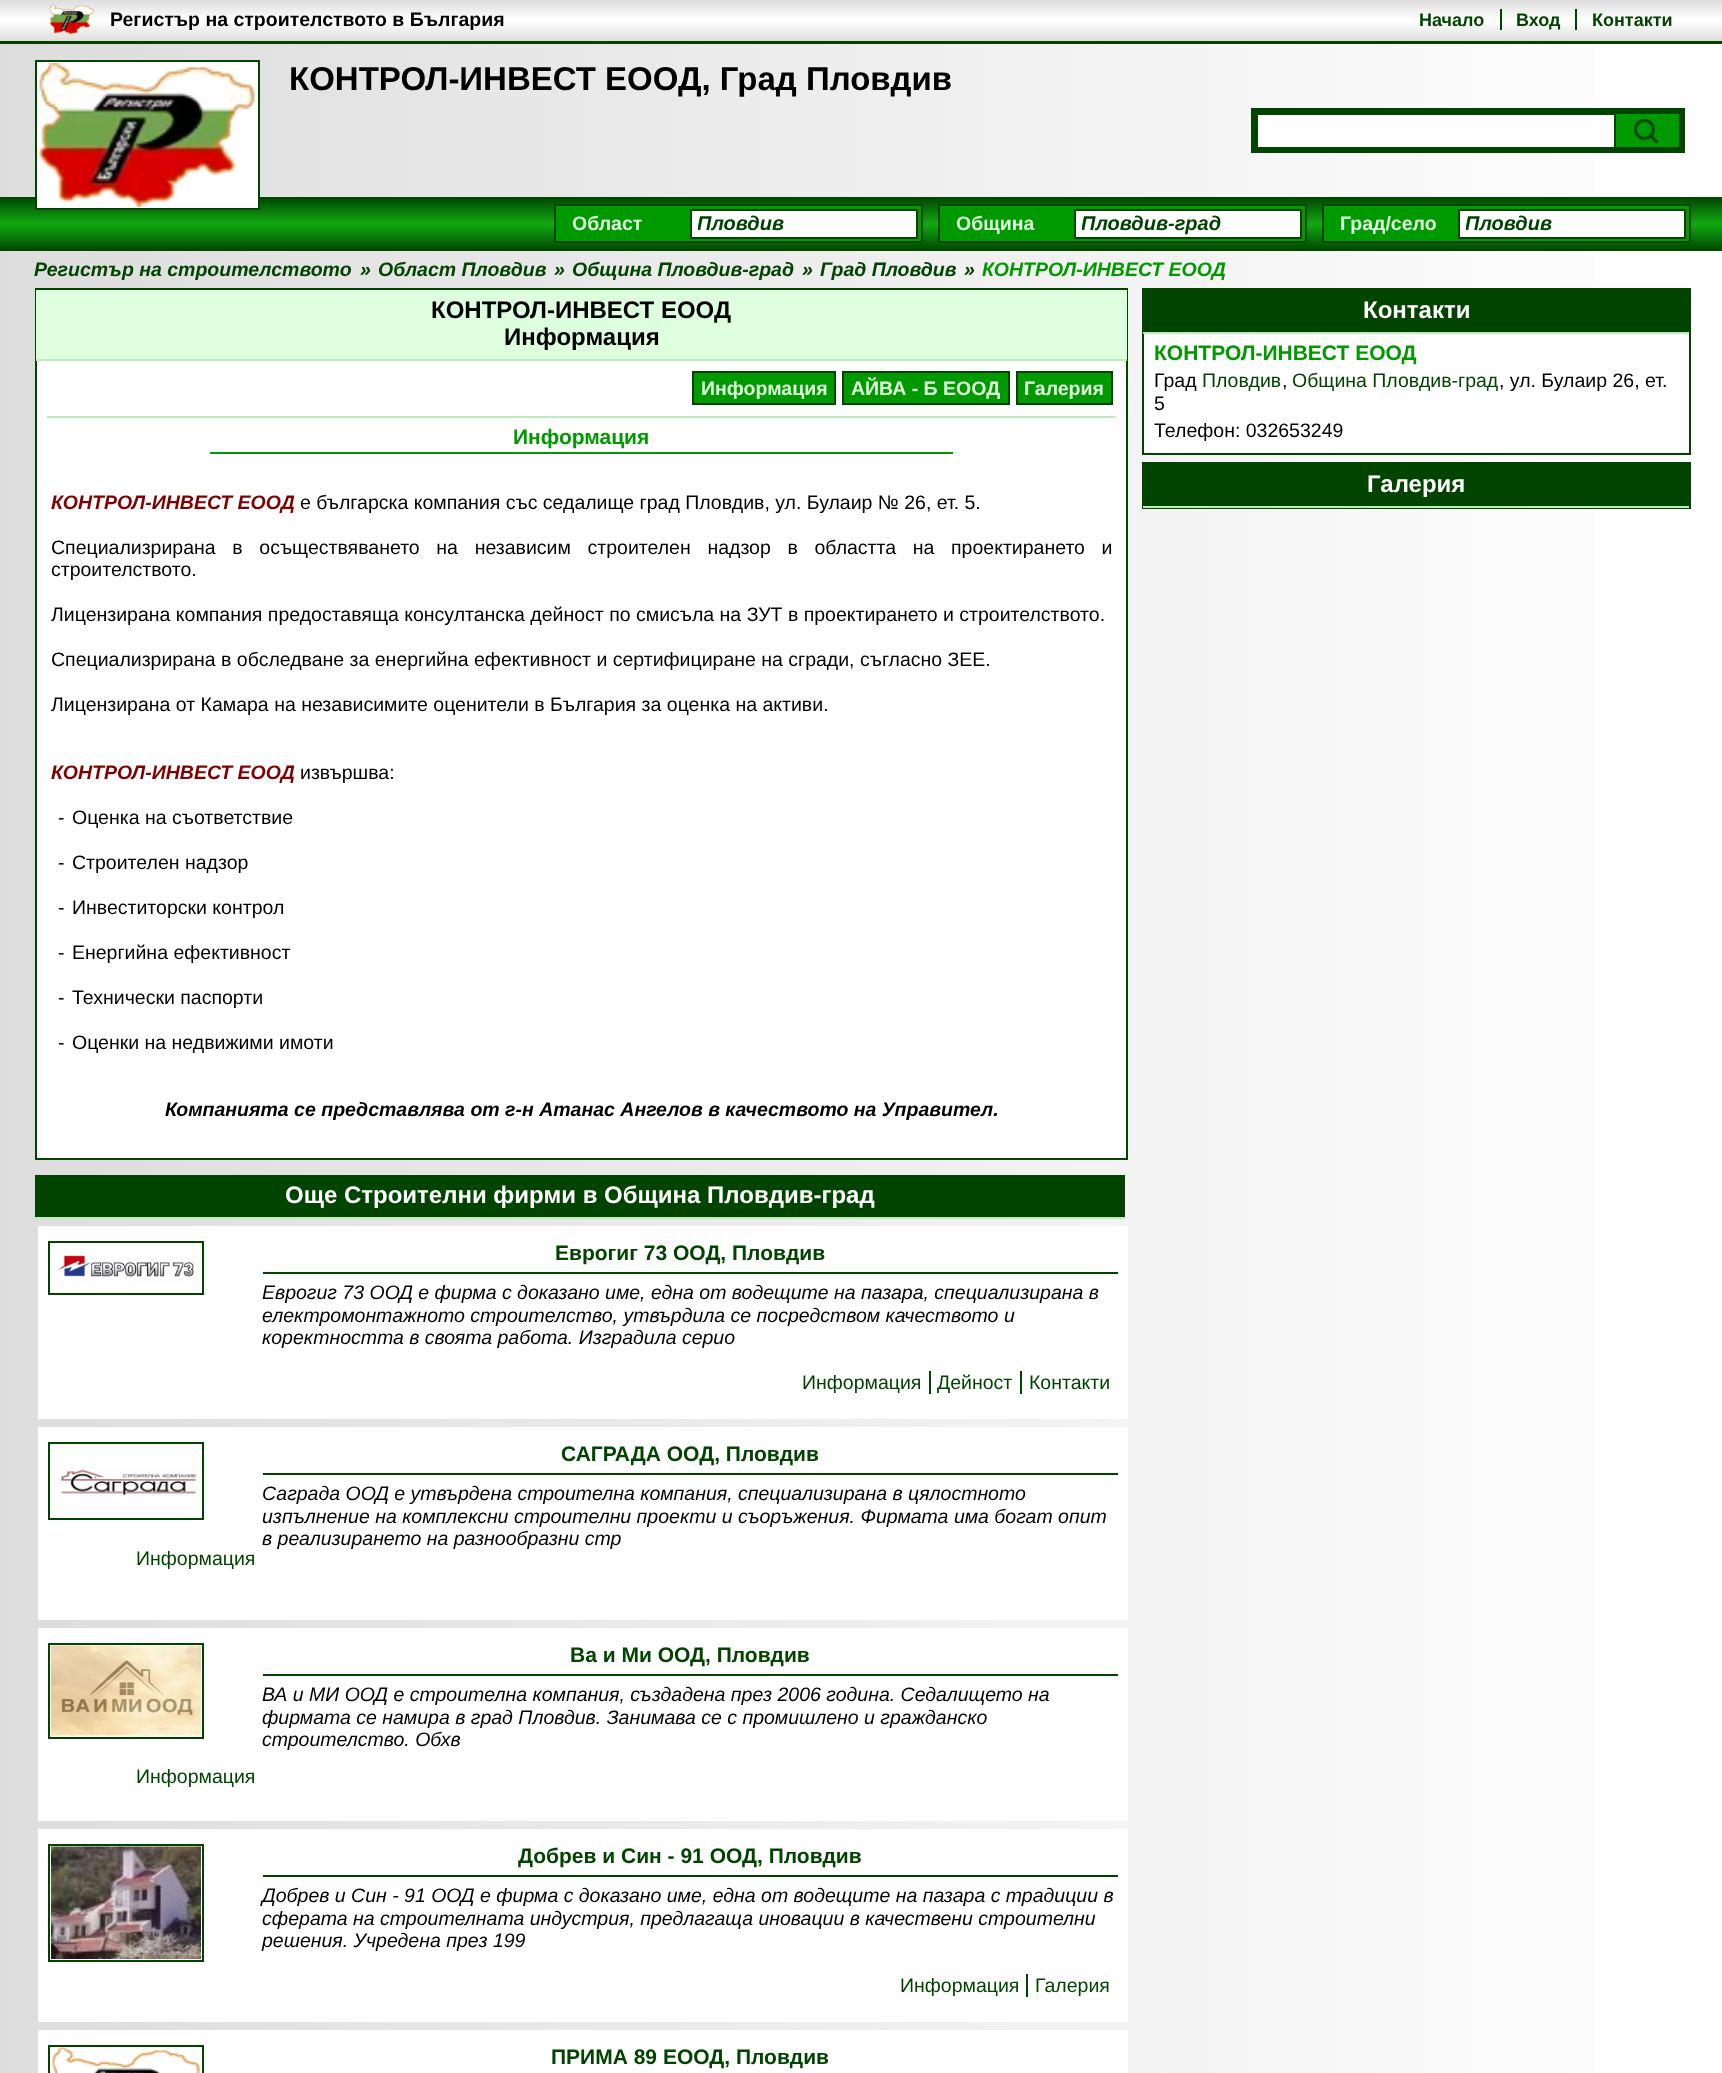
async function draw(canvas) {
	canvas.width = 1722;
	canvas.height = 2073;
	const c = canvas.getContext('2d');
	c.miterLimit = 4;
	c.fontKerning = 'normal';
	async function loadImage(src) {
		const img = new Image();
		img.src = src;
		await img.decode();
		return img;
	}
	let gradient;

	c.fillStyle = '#fff';
	c.fillRect(0, 0, 1722, 2073);
	gradient = c.createLinearGradient(1722, 1562, 0, 1562);
	gradient.addColorStop(0, '#fff');
	gradient.addColorStop(1, '#ddd');
	c.fillStyle = gradient;
	c.fillRect(0, 44, 1595, 2029);
	gradient = c.createLinearGradient(861, 41, 861, 0);
	gradient.addColorStop(0, '#ddd');
	gradient.addColorStop(0.5, '#fff');
	gradient.addColorStop(1, '#ddd');
	c.fillStyle = gradient;
	c.fillRect(0, 0, 1722, 41);
	c.fillStyle = '#040';
	c.fillRect(0, 41, 1722, 3);
	c.drawImage(await loadImage('img1.png'), 49, 4, 46, 31);
	c.font = 'bold 19.5px Liberation Sans';
	c.fillStyle = '#000';
	c.fillText('Регистър на строителството в България', 110, 26);
	c.font = 'bold 18px Liberation Sans';
	c.fillStyle = '#040';
	c.fillText('Начало', 1419, 26);
	c.fillText('Вход', 1516, 26);
	c.fillRect(1500, 9, 2, 21);
	c.fillText('Контакти', 1592, 26);
	c.fillRect(1575, 9, 2, 21);
	gradient = c.createLinearGradient(861, 251, 861, 197);
	gradient.addColorStop(0, '#040');
	gradient.addColorStop(0.5, '#1a1');
	gradient.addColorStop(1, '#040');
	c.fillStyle = gradient;
	c.fillRect(0, 197, 1722, 54);
	c.fillStyle = '#fff';
	c.beginPath();
	c.rect(36, 61, 223, 148);
	c.fill();
	c.strokeStyle = '#040';
	c.lineWidth = 2;
	c.stroke();
	c.drawImage(await loadImage('img2.png'), 39, 63, 216, 144);
	c.font = 'bold 33px Liberation Sans';
	c.fillStyle = '#000';
	c.fillText('КОНТРОЛ-ИНВЕСТ ЕООД, Град Пловдив', 289, 90);
	for (const [x, y, w, h, color] of [
		[1251, 108, 434, 45, '#040'],
		[1258, 115, 356, 32, '#fff'],
		[1616, 114, 63, 33, '#090'],
	]) {
		c.fillStyle = color;
		c.fillRect(x, y, w, h);
	}
	c.beginPath();
	c.arc(1644.5, 129.5, 9, 0, 2 * Math.PI);
	c.lineWidth = 3;
	c.stroke();
	c.fillStyle = '#040';
	c.beginPath();
	c.moveTo(1652.5, 135.5);
	c.lineTo(1658.5, 141.5);
	c.lineTo(1656.5, 143.5);
	c.lineTo(1650, 137.5);
	c.closePath();
	c.fill();
	c.fillStyle = '#090';
	c.beginPath();
	c.rect(555, 205, 367, 37);
	c.fill();
	c.lineWidth = 2;
	c.stroke();
	c.font = 'bold 19.5px Liberation Sans';
	c.fillStyle = '#dfd';
	c.fillText('Област', 572, 230);
	c.fillStyle = '#fff';
	c.beginPath();
	c.rect(691, 210, 226, 28);
	c.fill();
	c.stroke();
	c.save();
	c.beginPath();
	c.rect(698, 213, 213, 23);
	c.clip();
	c.font = 'italic bold 20px Liberation Sans';
	c.fillStyle = '#040';
	c.fillText('Пловдив', 697, 230);
	c.restore();
	c.fillStyle = '#090';
	c.beginPath();
	c.rect(939, 205, 367, 37);
	c.fill();
	c.stroke();
	c.fillStyle = '#dfd';
	c.fillText('Община', 956, 230);
	c.fillStyle = '#fff';
	c.beginPath();
	c.rect(1075, 210, 226, 28);
	c.fill();
	c.stroke();
	c.save();
	c.beginPath();
	c.rect(1082, 213, 213, 23);
	c.clip();
	c.font = 'italic bold 20px Liberation Sans';
	c.fillStyle = '#040';
	c.fillText('Пловдив-град', 1081, 230);
	c.restore();
	c.fillStyle = '#090';
	c.beginPath();
	c.rect(1323, 205, 367, 37);
	c.fill();
	c.stroke();
	c.fillStyle = '#dfd';
	c.fillText('Град/село', 1340, 230);
	c.fillStyle = '#fff';
	c.beginPath();
	c.rect(1459, 210, 226, 28);
	c.fill();
	c.stroke();
	c.save();
	c.beginPath();
	c.rect(1466, 213, 213, 23);
	c.clip();
	c.font = 'italic bold 20px Liberation Sans';
	c.fillStyle = '#040';
	c.fillText('Пловдив', 1465, 230);
	c.restore();
	c.font = 'italic bold 19.5px Liberation Sans';
	c.fillStyle = '#040';
	for (const [text, x, y] of [
		['Регистър на строителството', 34, 276],
		['»', 360, 276],
		['Област Пловдив', 378, 276],
		['»', 554, 276],
		['Община Пловдив-град', 572, 276],
		['»', 802, 276],
		['Град Пловдив', 820, 276],
		['»', 964, 276],
	]) {
		c.fillText(text, x, y);
	}
	c.fillStyle = '#090';
	c.fillText('КОНТРОЛ-ИНВЕСТ ЕООД', 982, 276);
	c.fillStyle = '#fff';
	c.fillRect(37, 361, 1089, 797);
	c.strokeRect(36, 289, 1091, 870);
	c.fillStyle = '#dfd';
	c.fillRect(36, 290, 1091, 69);
	c.fillStyle = '#beb';
	c.fillRect(36, 359, 1091, 2);
	c.font = 'bold 24px Liberation Sans';
	c.fillStyle = '#000';
	c.fillText('КОНТРОЛ-ИНВЕСТ ЕООД', 431, 318);
	c.fillText('Информация', 504, 345);
	c.fillStyle = '#beb';
	c.fillRect(47, 416, 1069, 2);
	c.fillStyle = '#090';
	c.beginPath();
	c.rect(693, 372, 142, 32);
	c.fill();
	c.stroke();
	c.font = 'bold 19.5px Liberation Sans';
	c.fillStyle = '#dfd';
	c.fillText('Информация', 701, 395);
	c.fillStyle = '#090';
	c.beginPath();
	c.rect(843, 372, 166, 32);
	c.fill();
	c.stroke();
	c.fillStyle = '#dfd';
	c.fillText('АЙВА - Б ЕООД', 851, 395);
	c.fillStyle = '#090';
	c.beginPath();
	c.rect(1017, 372, 95, 32);
	c.fill();
	c.stroke();
	c.fillStyle = '#dfd';
	c.fillText('Галерия', 1024, 395);
	c.fillStyle = '#090';
	c.fillRect(210, 452, 743, 2);
	c.font = 'bold 21px Liberation Sans';
	c.fillText('Информация', 513, 444);
	c.font = 'italic bold 19.5px Liberation Sans';
	c.fillStyle = '#800000';
	c.fillText('КОНТРОЛ-ИНВЕСТ ЕООД', 51, 509);
	c.font = '19.5px Liberation Sans';
	c.fillStyle = '#000';
	c.fillText('е българска компания със седалище град Пловдив, ул. Булаир № 26, ет. 5.', 300, 509);
	c.wordSpacing = '11.25px';
	c.fillText('Специализрирана в осъществяването на независим строителен надзор в областта на проектирането и', 51, 554);
	c.wordSpacing = '0px';
	for (const [text, x, y] of [
		['строителството.', 51, 576],
		['Лицензирана компания предоставяща консултанска дейност по смисъла на ЗУТ в проектирането и строителството.', 51, 621],
		['Специализрирана в обследване за енергийна ефективност и сертифициране на сгради, съгласно ЗЕЕ.', 51, 666],
		['Лицензирана от Камара на независимите оценители в България за оценка на активи.', 51, 711],
	]) {
		c.fillText(text, x, y);
	}
	c.font = 'italic bold 19.5px Liberation Sans';
	c.fillStyle = '#800000';
	c.fillText('КОНТРОЛ-ИНВЕСТ ЕООД', 51, 779);
	c.font = '19.5px Liberation Sans';
	c.fillStyle = '#000';
	for (const [text, x, y] of [
		['извършва:', 300, 779],
		['-', 58, 824],
		['Оценка на съответствие', 72, 824],
		['-', 58, 869],
		['Строителен надзор', 72, 869],
		['-', 58, 914],
		['Инвеститорски контрол', 72, 914],
		['-', 58, 959],
		['Енергийна ефективност', 72, 959],
		['-', 58, 1004],
		['Технически паспорти', 72, 1004],
		['-', 58, 1049],
		['Оценки на недвижими имоти', 72, 1049],
	]) {
		c.fillText(text, x, y);
	}
	c.font = 'italic bold 19.5px Liberation Sans';
	c.fillText('Компанията се представлява от г-н Атанас Ангелов в качеството на Управител.', 165, 1116);
	c.fillStyle = '#fff';
	c.fillRect(1144, 334, 451, 119);
	c.strokeRect(1143, 289, 547, 165);
	c.fillStyle = '#040';
	c.fillRect(1144, 290, 545, 42);
	c.fillStyle = '#beb';
	c.fillRect(1143, 332, 546, 2);
	c.font = 'bold 24px Liberation Sans';
	c.fillStyle = '#fff';
	c.fillText('Контакти', 1363, 318);
	c.font = 'bold 21px Liberation Sans';
	c.fillStyle = '#090';
	c.fillText('КОНТРОЛ-ИНВЕСТ ЕООД', 1154, 360);
	c.font = '19.5px Liberation Sans';
	c.fillStyle = '#000';
	c.fillText('Град', 1154, 387);
	c.fillStyle = '#040';
	c.fillText('Пловдив', 1202, 387);
	c.fillStyle = '#000';
	c.fillText(',', 1282, 387);
	c.fillStyle = '#040';
	c.fillText('Община Пловдив-град', 1292, 387);
	c.fillStyle = '#000';
	for (const [text, x, y] of [
		[', ул. Булаир 26, ет.', 1499, 387],
		['5', 1154, 410],
		['Телефон: 032653249', 1154, 437],
	]) {
		c.fillText(text, x, y);
	}
	c.strokeRect(1143, 463, 547, 45);
	c.fillStyle = '#040';
	c.fillRect(1144, 464, 545, 42);
	c.fillStyle = '#beb';
	c.fillRect(1143, 506, 546, 2);
	c.font = 'bold 24px Liberation Sans';
	c.fillStyle = '#fff';
	c.fillText('Галерия', 1367, 492);
	c.fillStyle = '#040';
	c.fillRect(35, 1175, 1090, 42);
	c.fillStyle = '#beb';
	c.fillRect(35, 1217, 1090, 2);
	c.fillStyle = '#fff';
	c.fillText('Още Строителни фирми в Община Пловдив-град', 285, 1203);
	c.fillRect(38, 1226, 1090, 193);
	c.strokeRect(49, 1242, 154, 52);
	c.drawImage(await loadImage('img3.png'), 58, 1255, 136, 22);
	c.fillStyle = '#040';
	c.fillRect(263, 1272, 855, 2);
	c.font = 'bold 21px Liberation Sans';
	c.fillText('Еврогиг 73 ООД, Пловдив', 555, 1260);
	c.font = 'italic 19.5px Liberation Sans';
	c.fillStyle = '#000';
	for (const [text, x, y] of [
		['Еврогиг 73 ООД е фирма с доказано име, една от водещите на пазара, специализирана в', 262, 1299],
		['електромонтажното строителство, утвърдила се посредством качеството и', 262, 1322],
		['коректността в своята работа. Изградила серио', 262, 1344],
	]) {
		c.fillText(text, x, y);
	}
	c.font = '19.5px Liberation Sans';
	c.fillStyle = '#040';
	c.fillText('Информация', 802, 1389);
	c.fillText('Дейност', 937, 1389);
	c.fillRect(929, 1371, 2, 23);
	c.fillText('Контакти', 1029, 1389);
	c.fillRect(1020, 1371, 2, 23);
	c.fillStyle = '#fff';
	c.fillRect(38, 1427, 1090, 193);
	c.strokeRect(49, 1443, 154, 76);
	c.drawImage(await loadImage('img4.png'), 60, 1469, 138, 27);
	c.fillStyle = '#040';
	c.fillRect(263, 1473, 855, 2);
	c.font = 'bold 21px Liberation Sans';
	c.fillText('САГРАДА ООД, Пловдив', 561, 1461);
	c.font = 'italic 19.5px Liberation Sans';
	c.fillStyle = '#000';
	for (const [text, x, y] of [
		['Саграда ООД е утвърдена строителна компания, специализирана в цялостното', 262, 1500],
		['изпълнение на комплексни строителни проекти и съоръжения. Фирмата има богат опит', 262, 1523],
		['в реализирането на разнообразни стр', 262, 1545],
	]) {
		c.fillText(text, x, y);
	}
	c.font = '19.5px Liberation Sans';
	c.fillStyle = '#040';
	c.fillText('Информация', 136, 1565);
	c.fillStyle = '#fff';
	c.fillRect(38, 1628, 1090, 193);
	c.strokeRect(49, 1644, 154, 94);
	c.drawImage(await loadImage('img5.png'), 51, 1645, 150, 91);
	c.fillStyle = '#040';
	c.fillRect(263, 1674, 855, 2);
	c.font = 'bold 21px Liberation Sans';
	c.fillText('Ва и Ми ООД, Пловдив', 570, 1662);
	c.font = 'italic 19.5px Liberation Sans';
	c.fillStyle = '#000';
	for (const [text, x, y] of [
		['ВА и МИ ООД е строителна компания, създадена през 2006 година. Седалището на', 262, 1701],
		['фирмата се намира в град Пловдив. Занимава се с промишлено и гражданско', 262, 1724],
		['строителство. Обхв', 262, 1746],
	]) {
		c.fillText(text, x, y);
	}
	c.font = '19.5px Liberation Sans';
	c.fillStyle = '#040';
	c.fillText('Информация', 136, 1783);
	c.fillStyle = '#fff';
	c.fillRect(38, 1829, 1090, 193);
	c.strokeRect(49, 1845, 154, 116);
	c.drawImage(await loadImage('img6.png'), 51, 1846, 150, 113);
	c.fillStyle = '#040';
	c.fillRect(263, 1875, 855, 2);
	c.font = 'bold 21px Liberation Sans';
	c.fillText('Добрев и Син - 91 ООД, Пловдив', 518, 1863);
	c.font = 'italic 19.5px Liberation Sans';
	c.fillStyle = '#000';
	for (const [text, x, y] of [
		['Добрев и Син - 91 ООД е фирма с доказано име, една от водещите на пазара с традиции в', 262, 1902],
		['сферата на строителната индустрия, предлагаща иновации в качествени строителни', 262, 1925],
		['решения. Учредена през 199', 262, 1947],
	]) {
		c.fillText(text, x, y);
	}
	c.font = '19.5px Liberation Sans';
	c.fillStyle = '#040';
	c.fillText('Информация', 900, 1992);
	c.fillText('Галерия', 1035, 1992);
	c.fillRect(1026, 1974, 2, 23);
	c.fillStyle = '#fff';
	c.fillRect(38, 2030, 1090, 43);
	c.strokeRect(49, 2046, 154, 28);
	c.drawImage(await loadImage('img7.png'), 52, 2047, 148, 26);
	c.font = 'bold 21px Liberation Sans';
	c.fillStyle = '#040';
	c.fillText('ПРИМА 89 ЕООД, Пловдив', 551, 2064);
}

draw(document.querySelector('canvas'));
